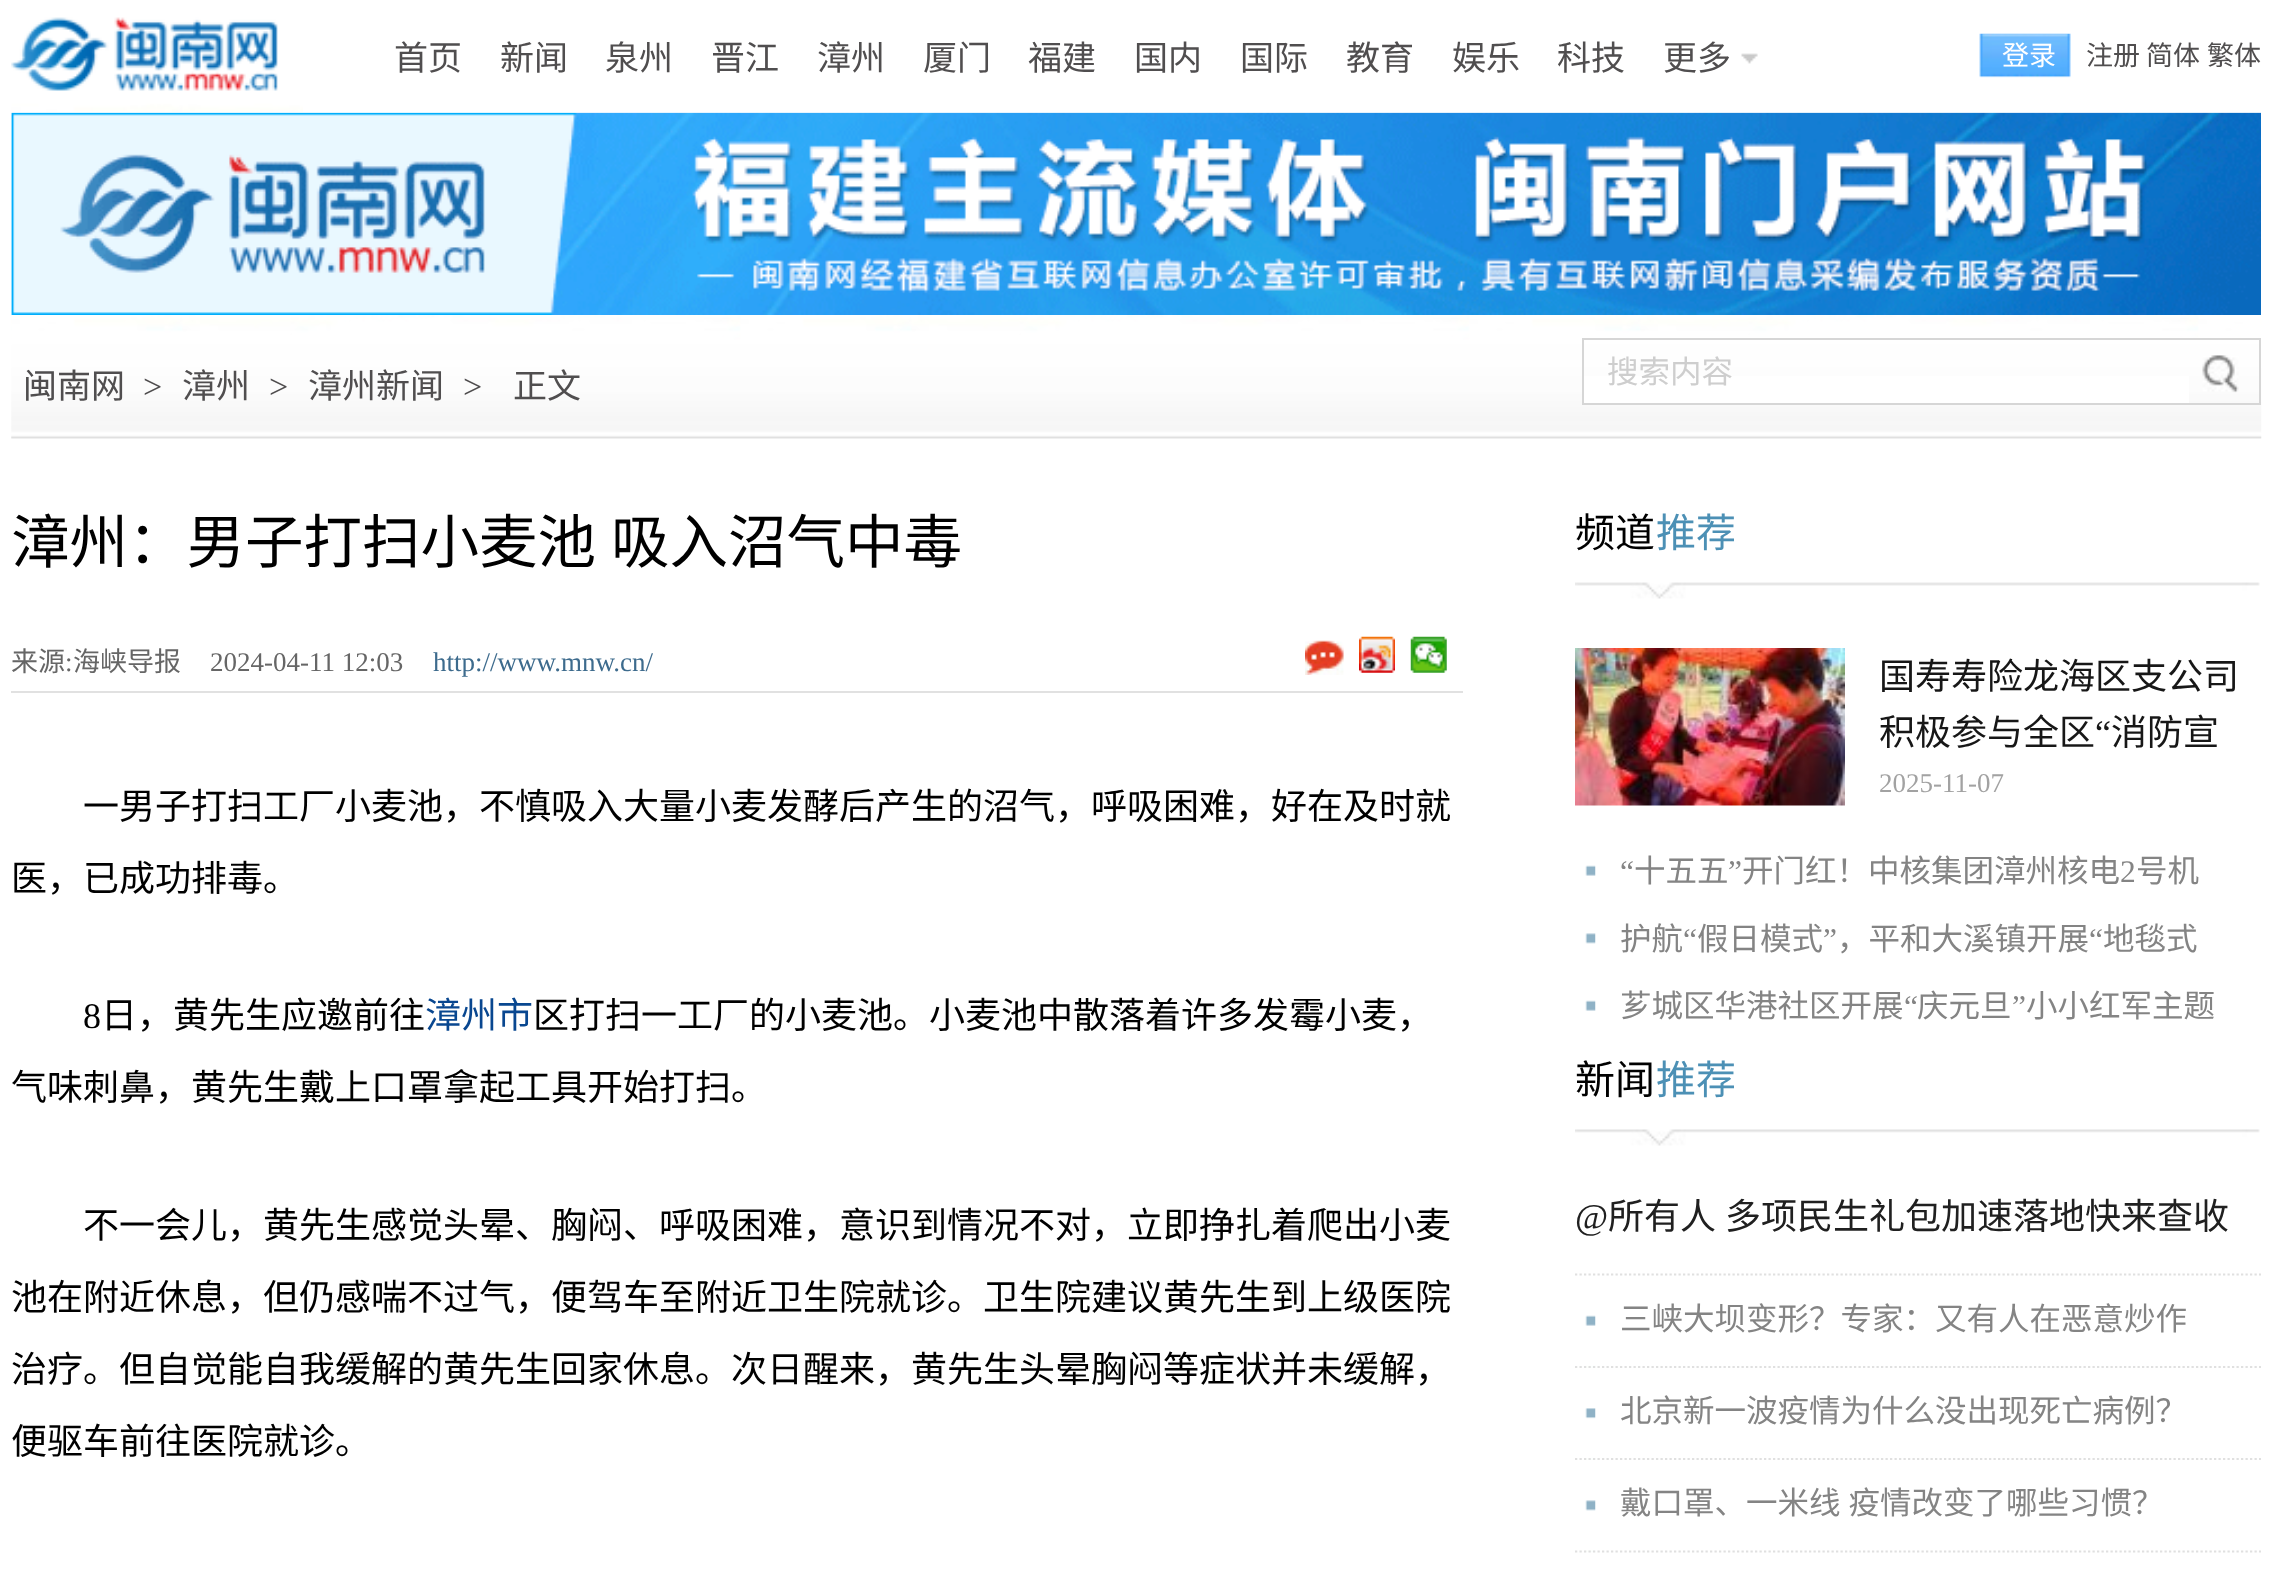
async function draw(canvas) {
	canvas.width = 2272;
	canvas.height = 1581;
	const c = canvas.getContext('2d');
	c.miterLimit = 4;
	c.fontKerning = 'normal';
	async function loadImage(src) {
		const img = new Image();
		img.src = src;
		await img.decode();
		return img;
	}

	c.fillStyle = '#fff';
	c.fillRect(0, 0, 2272, 1581);
	c.drawImage(await loadImage('img1.png'), 11, 17, 292, 95);
	c.font = '34px Noto Sans CJK SC';
	c.fillStyle = '#504e4f';
	for (const [text, x, y] of [
		['首页', 394, 70],
		['新闻', 500, 70],
		['泉州', 605, 70],
		['晋江', 711, 70],
		['漳州', 817, 70],
		['厦门', 923, 70],
		['福建', 1028, 70],
		['国内', 1134, 70],
		['国际', 1240, 70],
		['教育', 1346, 70],
		['娱乐', 1452, 70],
		['科技', 1557, 70],
	]) {
		c.fillText(text, x, y);
	}
	c.drawImage(await loadImage('img2.png'), 1741, 53, 17, 11);
	c.fillText('更多', 1663, 70);
	c.drawImage(await loadImage('img3.png'), 1979, 33, 92, 45);
	c.font = '27px Noto Sans CJK SC';
	c.fillStyle = '#fff';
	c.fillText('登录', 2002, 65);
	c.fillStyle = '#504e4f';
	for (const [text, x, y] of [
		['注册', 2086, 65],
		['简体', 2146, 65],
		['繁体', 2207, 65],
	]) {
		c.fillText(text, x, y);
	}
	c.drawImage(await loadImage('img4.png'), 11, 112, 2250, 203);
	c.drawImage(await loadImage('img5.png'), 11, 315, 2251, 124);
	c.font = '34px Noto Sans CJK SC';
	c.fillText('闽南网', 23, 398);
	c.font = '34px Liberation Serif';
	c.fillText('>', 143, 398);
	c.font = '34px Noto Sans CJK SC';
	c.fillText('漳州', 182, 398);
	c.font = '34px Liberation Serif';
	c.fillText('>', 269, 398);
	c.font = '34px Noto Sans CJK SC';
	c.fillText('漳州新闻', 308, 398);
	c.font = '34px Liberation Serif';
	c.fillText('>', 463, 398);
	c.font = '34px Noto Sans CJK SC';
	c.fillText('正文', 513, 398);
	c.strokeStyle = '#d6d6d6';
	c.lineWidth = 2;
	c.strokeRect(1583, 339, 677, 65);
	c.fillStyle = '#fff';
	c.fillRect(1584, 376, 605, 27);
	c.font = '31.5px Noto Sans CJK SC';
	c.fillStyle = '#cecece';
	c.fillText('搜索内容', 1607, 383);
	c.drawImage(await loadImage('img6.png'), 2202, 355, 37, 38);
	c.wordSpacing = '2px';
	c.font = '58.5px Noto Sans CJK SC';
	c.fillStyle = '#000';
	c.fillText('漳州：男子打扫小麦池 吸入沼气中毒', 11, 563);
	c.fillStyle = '#e1e1e1';
	c.fillRect(11, 691, 1452, 2);
	c.wordSpacing = '0px';
	c.font = '27px Noto Sans CJK SC';
	c.fillStyle = '#666';
	c.fillText('来源', 11, 671);
	c.font = '27px Liberation Serif';
	c.fillText(':', 65, 671);
	c.font = '27px Noto Sans CJK SC';
	c.fillText('海峡导报', 73, 671);
	c.font = '27px Liberation Serif';
	c.fillText('2024-04-11 12:03', 210, 671);
	c.fillStyle = '#3d6b8d';
	c.fillText('http://www.mnw.cn/', 433, 671);
	c.drawImage(await loadImage('img7.png'), 1305, 640, 39, 35);
	c.drawImage(await loadImage('img8.png'), 1359, 636, 36, 37);
	c.drawImage(await loadImage('img9.png'), 1410, 636, 37, 37);
	c.font = '36px Noto Sans CJK SC';
	c.fillStyle = '#000';
	c.fillText('一男子打扫工厂小麦池，不慎吸入大量小麦发酵后产生的沼气，呼吸困难，好在及时就', 83, 819);
	c.fillText('医，已成功排毒。', 11, 891);
	c.font = '36px Liberation Serif';
	c.fillText('8', 83, 1028);
	c.font = '36px Noto Sans CJK SC';
	c.fillText('日，黄先生应邀前往', 101, 1028);
	c.fillStyle = '#094790';
	c.fillText('漳州市', 425, 1028);
	c.fillStyle = '#000';
	for (const [text, x, y] of [
		['区打扫一工厂的小麦池。小麦池中散落着许多发霉小麦，', 533, 1028],
		['气味刺鼻，黄先生戴上口罩拿起工具开始打扫。', 11, 1100],
		['不一会儿，黄先生感觉头晕、胸闷、呼吸困难，意识到情况不对，立即挣扎着爬出小麦', 83, 1238],
		['池在附近休息，但仍感喘不过气，便驾车至附近卫生院就诊。卫生院建议黄先生到上级医院', 11, 1310],
		['治疗。但自觉能自我缓解的黄先生回家休息。次日醒来，黄先生头晕胸闷等症状并未缓解，', 11, 1382],
		['便驱车前往医院就诊。', 11, 1454],
	]) {
		c.fillText(text, x, y);
	}
	c.drawImage(await loadImage('img10.png'), 1575, 582, 685, 17);
	c.font = '40px Noto Sans CJK SC';
	c.fillText('频道', 1575, 547);
	c.fillStyle = '#4c90b5';
	c.fillText('推荐', 1656, 547);
	c.drawImage(await loadImage('img11.png'), 1575, 648, 270, 158);
	c.font = '36px Noto Sans CJK SC';
	c.fillStyle = '#171717';
	c.fillText('国寿寿险龙海区支公司', 1879, 689);
	c.fillText('积极参与全区', 1879, 745);
	c.font = '36px Liberation Serif';
	c.fillText('“', 2095, 745);
	c.font = '36px Noto Sans CJK SC';
	c.fillText('消防宣', 2111, 745);
	c.font = '27px Liberation Serif';
	c.fillStyle = '#a2a2a2';
	c.fillText('2025-11-07', 1879, 792);
	c.drawImage(await loadImage('img12.png'), 1585, 865, 11, 11);
	c.font = '31.5px Liberation Serif';
	c.fillStyle = '#848484';
	c.fillText('“', 1620, 882);
	c.font = '31.5px Noto Sans CJK SC';
	c.fillText('十五五', 1634, 882);
	c.font = '31.5px Liberation Serif';
	c.fillText('”', 1728, 882);
	c.font = '31.5px Noto Sans CJK SC';
	c.fillText('开门红！中核集团漳州核电', 1742, 882);
	c.font = '31.5px Liberation Serif';
	c.fillText('2', 2120, 882);
	c.font = '31.5px Noto Sans CJK SC';
	c.fillText('号机', 2136, 882);
	c.drawImage(await loadImage('img13.png'), 1585, 933, 11, 11);
	c.fillText('护航', 1620, 950);
	c.font = '31.5px Liberation Serif';
	c.fillText('“', 1683, 950);
	c.font = '31.5px Noto Sans CJK SC';
	c.fillText('假日模式', 1697, 950);
	c.font = '31.5px Liberation Serif';
	c.fillText('”', 1823, 950);
	c.font = '31.5px Noto Sans CJK SC';
	c.fillText('，平和大溪镇开展', 1837, 950);
	c.font = '31.5px Liberation Serif';
	c.fillText('“', 2089, 950);
	c.font = '31.5px Noto Sans CJK SC';
	c.fillText('地毯式', 2103, 950);
	c.drawImage(await loadImage('img12.png'), 1585, 1000, 11, 11);
	c.fillText('芗城区华港社区开展', 1620, 1017);
	c.font = '31.5px Liberation Serif';
	c.fillText('“', 1904, 1017);
	c.font = '31.5px Noto Sans CJK SC';
	c.fillText('庆元旦', 1917, 1017);
	c.font = '31.5px Liberation Serif';
	c.fillText('”', 2012, 1017);
	c.font = '31.5px Noto Sans CJK SC';
	c.fillText('小小红军主题', 2026, 1017);
	c.drawImage(await loadImage('img14.png'), 1575, 1129, 685, 17);
	c.font = '40px Noto Sans CJK SC';
	c.fillStyle = '#000';
	c.fillText('新闻', 1575, 1094);
	c.fillStyle = '#4c90b5';
	c.fillText('推荐', 1656, 1094);
	c.beginPath();
	c.moveTo(1575, 1274.5);
	c.lineTo(2261, 1274.5);
	c.strokeStyle = '#e0e0e0';
	c.lineWidth = 2.2;
	c.setLineDash([2.25, 2.25]);
	c.stroke();
	c.font = '36px Liberation Serif';
	c.fillStyle = '#202020';
	c.fillText('@', 1575, 1229);
	c.wordSpacing = '1px';
	c.font = '36px Noto Sans CJK SC';
	c.fillText('所有人 多项民生礼包加速落地快来查收', 1608, 1229);
	c.drawImage(await loadImage('img15.png'), 1585, 1315, 11, 53);
	c.save();
	c.beginPath();
	c.rect(1575, 1195, 686, 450);
	c.clip();
	c.beginPath();
	c.moveTo(1575, 1367);
	c.lineTo(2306, 1367);
	c.stroke();
	c.restore();
	c.wordSpacing = '0px';
	c.font = '31.5px Noto Sans CJK SC';
	c.fillStyle = '#848484';
	c.fillText('三峡大坝变形？专家：又有人在恶意炒作', 1620, 1330);
	c.drawImage(await loadImage('img16.png'), 1585, 1408, 11, 52);
	c.save();
	c.beginPath();
	c.rect(1575, 1195, 686, 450);
	c.clip();
	c.beginPath();
	c.moveTo(1575, 1459);
	c.lineTo(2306, 1459);
	c.stroke();
	c.restore();
	c.fillText('北京新一波疫情为什么没出现死亡病例？', 1620, 1422);
	c.drawImage(await loadImage('img17.png'), 1585, 1500, 11, 52);
	c.save();
	c.beginPath();
	c.rect(1575, 1195, 686, 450);
	c.clip();
	c.beginPath();
	c.moveTo(1575, 1551.5);
	c.lineTo(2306, 1551.5);
	c.stroke();
	c.restore();
	c.wordSpacing = '1px';
	c.fillText('戴口罩、一米线 疫情改变了哪些习惯？', 1620, 1514);
}

draw(document.querySelector('canvas'));
